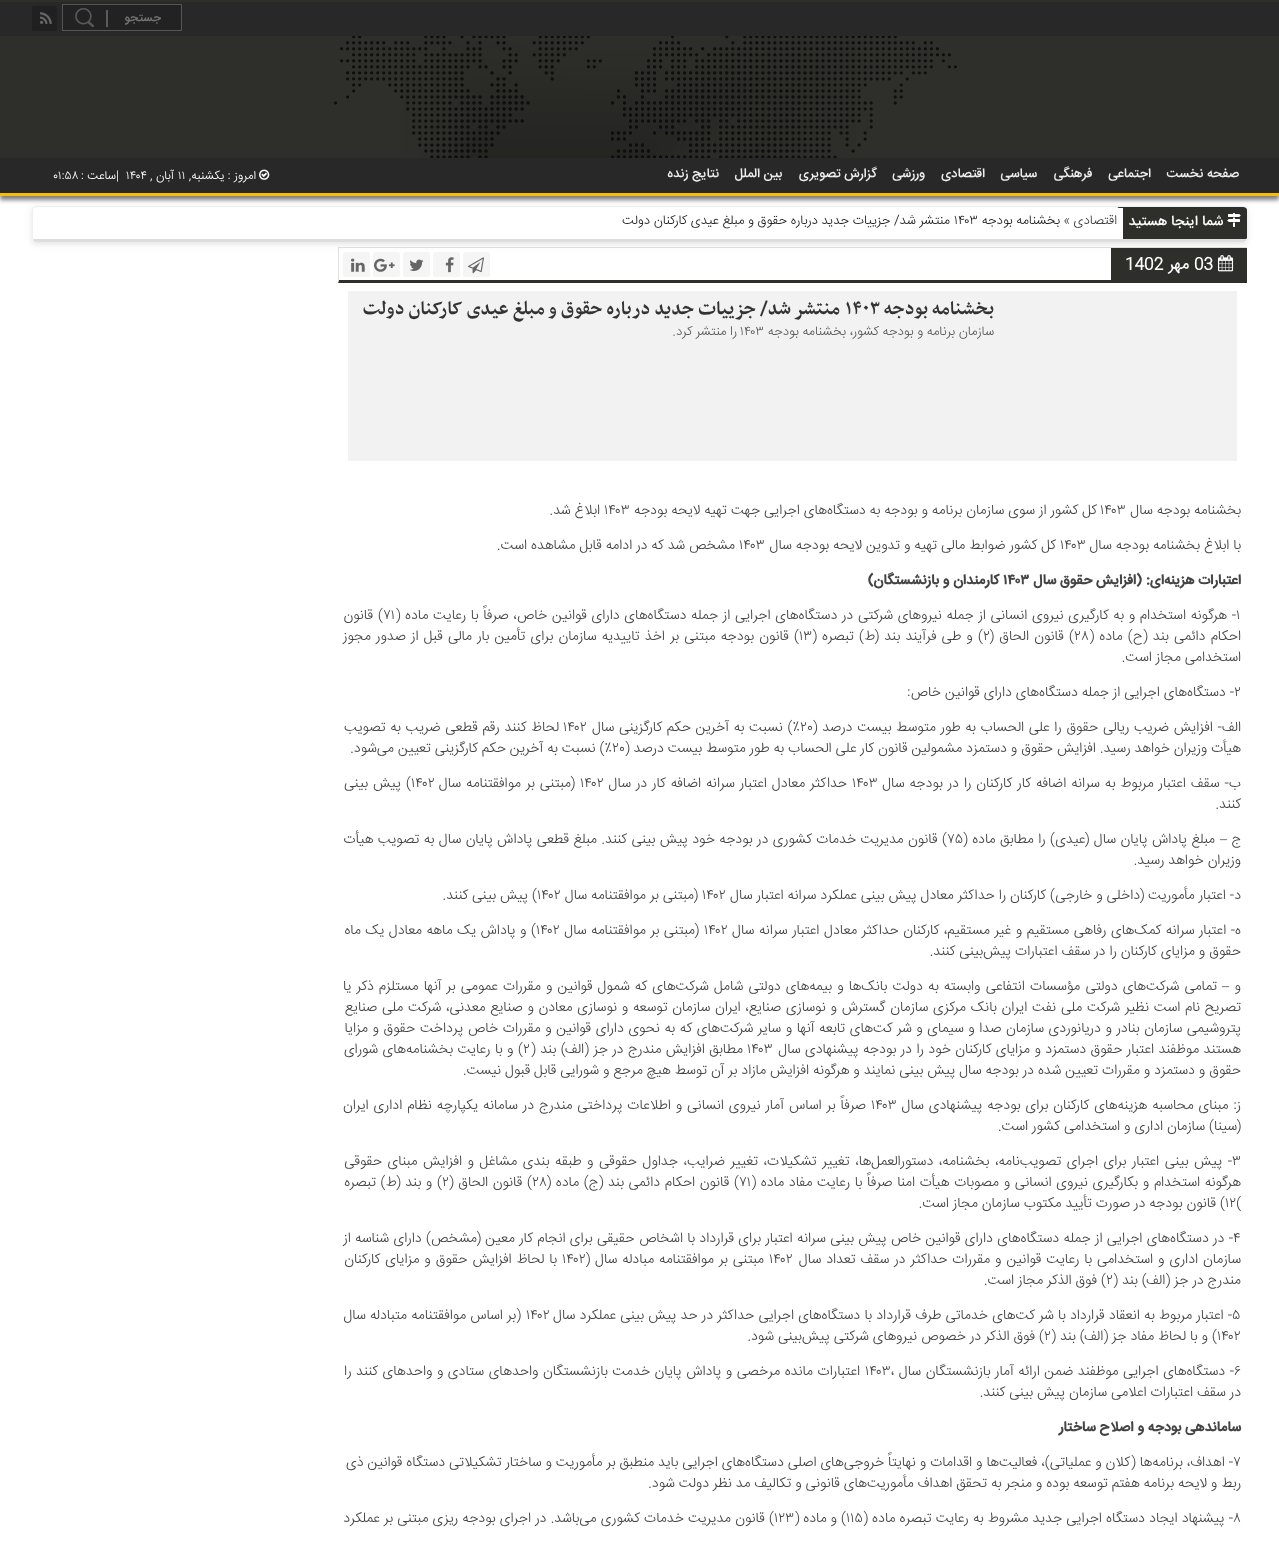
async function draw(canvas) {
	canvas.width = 1279;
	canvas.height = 1543;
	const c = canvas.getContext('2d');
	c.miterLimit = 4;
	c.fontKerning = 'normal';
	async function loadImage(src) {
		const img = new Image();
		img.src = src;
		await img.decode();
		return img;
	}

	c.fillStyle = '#fff';
	c.fillRect(0, 0, 1279, 1543);
	for (const [x, y, w, h, color] of [
		[0, 2, 1279, 34, '#282828'],
		[0, 0, 1279, 2, '#2e2e2b'],
		[63, 5, 118, 25, '#222'],
	]) {
		c.fillStyle = color;
		c.fillRect(x, y, w, h);
	}
	c.drawImage(await loadImage('img1.png'), 75, 8, 33, 19);
	c.strokeStyle = '#555';
	c.strokeRect(62.5, 4.5, 119, 26);
	c.direction = 'rtl';
	c.font = '500 12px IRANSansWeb';
	c.fillStyle = '#757575';
	c.fillText('جستجو', 161, 21);
	c.fillStyle = '#202020';
	c.beginPath();
	c.roundRect(32, 6, 25, 25, 2.5);
	c.fill();
	c.drawImage(await loadImage('img2.png'), 40, 12, 12, 12);
	c.fillStyle = '#2e2e2b';
	c.fillRect(0, 36, 1279, 122);
	c.fillStyle = '#00000080';
	c.filter = 'blur(2px)';
	c.beginPath();
	c.rect(0, 162, 1279, 38);
	c.fill();
	c.filter = 'none';
	c.fillStyle = '#282828';
	c.fillRect(0, 158, 1279, 35);
	c.fillStyle = '#f5be08';
	c.fillRect(0, 193, 1279, 3);
	c.font = '500 13px IRANSansWeb';
	c.fillStyle = '#eee';
	for (const [text, x, y] of [
		['صفحه نخست', 1239, 177],
		['اجتماعی', 1151, 177],
		['فرهنگی', 1092, 177],
		['سیاسی', 1037, 177],
		['اقتصادی', 985, 177],
		['ورزشی', 925, 177],
		['گزارش تصویری', 877, 177],
		['بین الملل', 782, 177],
		['نتایج زنده', 719, 177],
	]) {
		c.fillText(text, x, y);
	}
	c.drawImage(await loadImage('img3.png'), 334, 36, 623, 122);
	c.drawImage(await loadImage('img4.png'), 259, 169, 11, 11);
	c.font = '300 12px IRANSansWeb';
	c.fillStyle = '#fff';
	c.fillText('امروز : یکشنبه,', 256, 179);
	c.direction = 'ltr';
	c.fillText('۱۱', 178, 179);
	c.direction = 'rtl';
	c.fillText('آبان ,', 174, 179);
	c.direction = 'ltr';
	c.fillText('۱۴۰۴', 126, 179);
	c.fillText('|', 116, 179);
	c.direction = 'rtl';
	c.fillText('ساعت :', 116, 179);
	c.direction = 'ltr';
	c.fillText('۰۱:۵۸', 53, 179);
	c.fillStyle = '#e3e0e0';
	c.fillRect(338, 247, 909, 1);
	c.fillStyle = '#2e2e2b';
	c.beginPath();
	c.moveTo(1247, 283);
	c.lineTo(338, 283);
	c.lineTo(339, 280);
	c.lineTo(1247, 280);
	c.closePath();
	c.fill();
	c.fillStyle = '#e3e0e0';
	c.beginPath();
	c.moveTo(338, 283);
	c.lineTo(338, 247);
	c.lineTo(339, 248);
	c.lineTo(339, 280);
	c.closePath();
	c.fill();
	c.fillStyle = '#2e2e2b';
	c.fillRect(1111, 248, 136, 32);
	c.drawImage(await loadImage('img6.png'), 1218, 255, 16, 17);
	c.fillStyle = '#f5f5f5';
	c.beginPath();
	c.roundRect(463, 252, 27, 25, 2.5);
	c.fill();
	c.drawImage(await loadImage('img7.png'), 468, 257, 16, 17);
	c.beginPath();
	c.roundRect(433, 252, 27, 25, 2.5);
	c.fill();
	c.drawImage(await loadImage('img8.png'), 445, 257, 9, 16);
	c.beginPath();
	c.roundRect(403, 252, 27, 25, 2.5);
	c.fill();
	c.drawImage(await loadImage('img9.png'), 409, 259, 15, 12);
	c.beginPath();
	c.roundRect(373, 252, 27, 25, 2.5);
	c.fill();
	c.drawImage(await loadImage('img10.png'), 374, 258, 21, 14);
	c.beginPath();
	c.roundRect(343, 252, 27, 25, 2.5);
	c.fill();
	c.drawImage(await loadImage('img11.png'), 351, 258, 14, 14);
	c.fillStyle = '#0000000f';
	c.filter = 'blur(5px)';
	c.beginPath();
	c.roundRect(32, 208, 1215, 36, 4);
	c.fill();
	c.filter = 'none';
	c.filter = 'blur(2.5px)';
	c.beginPath();
	c.roundRect(32, 208, 1215, 36, 4);
	c.fill();
	c.filter = 'none';
	c.fillStyle = '#fff';
	c.beginPath();
	c.roundRect(32, 206, 1215, 36, 4);
	c.fill();
	c.fillStyle = '#eee';
	c.beginPath();
	c.moveTo(36, 206);
	c.lineTo(33, 207);
	c.lineTo(34, 208);
	c.lineTo(36, 207);
	c.lineTo(1243, 207);
	c.bezierCurveTo(1245, 207, 1247, 208, 1247, 210);
	c.bezierCurveTo(1247, 208, 1245, 206, 1243, 206);
	c.closePath();
	c.fill();
	c.fillStyle = '#ddd';
	c.beginPath();
	c.moveTo(36, 242);
	c.lineTo(1243, 242);
	c.bezierCurveTo(1245, 242, 1247, 240, 1247, 238);
	c.bezierCurveTo(1247, 239, 1244, 239, 1243, 239);
	c.lineTo(36, 239);
	c.lineTo(33, 239);
	c.lineTo(33, 240);
	c.bezierCurveTo(33, 241, 35, 242, 36, 242);
	c.closePath();
	c.fill();
	c.fillStyle = '#eee';
	c.beginPath();
	c.moveTo(32, 210);
	c.lineTo(32, 238);
	c.bezierCurveTo(32, 238.5, 32, 239.5, 32.5, 240);
	c.lineTo(33, 238.5);
	c.lineTo(33, 209.5);
	c.lineTo(34, 208);
	c.lineTo(33, 207);
	c.bezierCurveTo(32.5, 208, 32, 209, 32, 210);
	c.closePath();
	c.fill();
	c.fillStyle = '#2e2e2b';
	c.beginPath();
	c.moveTo(1119, 207);
	c.bezierCurveTo(1118, 207, 1117, 208, 1117, 209);
	c.lineTo(1117, 239);
	c.lineTo(1243, 239);
	c.bezierCurveTo(1245, 239, 1247, 239, 1247, 238);
	c.lineTo(1247, 210);
	c.bezierCurveTo(1247, 208, 1245, 207, 1243, 207);
	c.closePath();
	c.fill();
	c.fillStyle = '#fff';
	c.fillRect(1117, 208, 6, 31);
	c.drawImage(await loadImage('img5.png'), 1227, 213, 14, 14);
	c.direction = 'rtl';
	c.font = '500 14px IRANSansWeb';
	c.fillText('شما اینجا هستید', 1223, 225);
	c.font = '300 13px IRANSansWeb';
	c.fillStyle = '#3b3b3b';
	c.fillText('اقتصادی', 1117, 224);
	c.fillStyle = '#212121';
	c.fillText('» بخشنامه بودجه', 1070, 224);
	c.direction = 'ltr';
	c.fillText('۱۴۰۳', 954, 224);
	c.direction = 'rtl';
	c.fillText('منتشر شد/ جزییات جدید درباره حقوق و مبلغ عیدی کارکنان دولت', 950, 224);
	c.direction = 'ltr';
	c.font = 'bold 16px IRANSansWeb';
	c.fillStyle = '#fff';
	c.fillText('03', 1194, 269);
	c.direction = 'rtl';
	c.fillText('مهر', 1189, 269);
	c.direction = 'ltr';
	c.fillText('1402', 1125, 269);
	c.fillStyle = '#f2f2f2';
	c.fillRect(348, 291, 889, 170);
	c.direction = 'rtl';
	c.font = 'bold 22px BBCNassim';
	c.fillStyle = '#333';
	c.fillText('بخشنامه بودجه', 994, 314);
	c.direction = 'ltr';
	c.fillText('۱۴۰۳', 845, 314);
	c.direction = 'rtl';
	c.fillText('منتشر شد/ جزییات جدید درباره حقوق و مبلغ عیدی کارکنان دولت', 840, 314);
	c.font = '300 13px IRANSansWeb';
	c.fillStyle = '#5a5a5a';
	c.fillText('سازمان برنامه و بودجه کشور، بخشنامه بودجه', 994, 335);
	c.direction = 'ltr';
	c.fillText('۱۴۰۳', 740, 335);
	c.direction = 'rtl';
	c.fillText('را منتشر کرد.', 737, 335);
	c.font = '300 14px IRANSansWeb';
	c.fillStyle = '#444';
	c.fillText('بخشنامه بودجه سال', 1241, 514);
	c.direction = 'ltr';
	c.fillText('۱۴۰۳', 1100, 514);
	c.direction = 'rtl';
	c.fillText('کل کشور از سوی سازمان برنامه و بودجه به دستگاه‌های اجرایی جهت تهیه لایحه بودجه', 1097, 514);
	c.direction = 'ltr';
	c.fillText('۱۴۰۳', 604, 514);
	c.direction = 'rtl';
	c.fillText('ابلاغ شد.', 600, 514);
	c.fillText('با ابلاغ بخشنامه بودجه سال', 1241, 549);
	c.direction = 'ltr';
	c.fillText('۱۴۰۳', 1060, 549);
	c.direction = 'rtl';
	c.fillText('کل کشور ضوابط مالی تهیه و تدوین لایحه بودجه سال', 1056, 549);
	c.direction = 'ltr';
	c.fillText('۱۴۰۳', 739, 549);
	c.direction = 'rtl';
	c.fillText('مشخص شد که در ادامه قابل مشاهده است.', 735, 549);
	c.font = 'bold 14px "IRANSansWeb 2"';
	c.fillText('اعتبارات هزینه‌ای: (افزایش حقوق سال', 1241, 584);
	c.direction = 'ltr';
	c.fillText('۱۴۰۳', 1003, 584);
	c.direction = 'rtl';
	c.fillText('کارمندان و بازنشستگان)', 999, 584);
	c.direction = 'ltr';
	c.font = '300 14px IRANSansWeb';
	c.fillText('۱', 1236, 619);
	c.wordSpacing = '0.75px';
	c.direction = 'rtl';
	c.fillText('- هرگونه استخدام و به کارگیری نیروی انسانی از جمله نیروهای شرکتی در دستگاه‌های اجرایی از جمله دستگاه‌های دارای قوانین خاص، صرفاً با رعایت ماده (', 1236, 619);
	c.wordSpacing = '0px';
	c.direction = 'ltr';
	c.fillText('۷۱', 383, 619);
	c.wordSpacing = '1px';
	c.direction = 'rtl';
	c.fillText(') قانون', 383, 619);
	c.wordSpacing = '1.25px';
	c.fillText('احکام دائمی بند (ح) ماده (', 1241, 640);
	c.wordSpacing = '0px';
	c.direction = 'ltr';
	c.fillText('۲۸', 1074, 640);
	c.wordSpacing = '1.25px';
	c.direction = 'rtl';
	c.fillText(') قانون الحاق (', 1074, 640);
	c.wordSpacing = '0px';
	c.direction = 'ltr';
	c.fillText('۲', 983, 640);
	c.wordSpacing = '1.25px';
	c.direction = 'rtl';
	c.fillText(') و طی فرآیند بند (ط) تبصره (', 983, 640);
	c.wordSpacing = '0px';
	c.direction = 'ltr';
	c.fillText('۱۳', 799, 640);
	c.wordSpacing = '1.25px';
	c.direction = 'rtl';
	c.fillText(') قانون بودجه مبتنی بر اخذ تاییدیه سازمان برای تأمین بار مالی قبل از صدور مجوز', 799, 640);
	c.wordSpacing = '0px';
	c.fillText('استخدامی مجاز است.', 1241, 661);
	c.direction = 'ltr';
	c.fillText('۲', 1234, 696);
	c.direction = 'rtl';
	c.fillText('- دستگاه‌های اجرایی از جمله دستگاه‌های دارای قوانین خاص:', 1234, 696);
	c.wordSpacing = '0.75px';
	c.fillText('الف- افزایش ضریب ریالی حقوق را علی الحساب به طور متوسط بیست درصد (', 1241, 731);
	c.wordSpacing = '0px';
	c.direction = 'ltr';
	c.fillText('۲۰', 800, 731);
	c.wordSpacing = '0.75px';
	c.direction = 'rtl';
	c.fillText('٪) نسبت به آخرین حکم کارگزینی سال', 800, 731);
	c.wordSpacing = '0px';
	c.direction = 'ltr';
	c.fillText('۱۴۰۲', 563, 731);
	c.wordSpacing = '0.75px';
	c.direction = 'rtl';
	c.fillText('لحاظ کنند رقم قطعی ضریب به تصویب', 559, 731);
	c.wordSpacing = '0px';
	c.fillText('هیأت وزیران خواهد رسید. افزایش حقوق و دستمزد مشمولین قانون کار علی الحساب به طور متوسط بیست درصد (', 1241, 752);
	c.direction = 'ltr';
	c.fillText('۲۰', 612, 752);
	c.direction = 'rtl';
	c.fillText('٪) نسبت به آخرین حکم کارگزینی تعیین می‌شود.', 612, 752);
	c.wordSpacing = '1px';
	c.fillText('ب- سقف اعتبار مربوط به سرانه اضافه کار کارکنان را در بودجه سال', 1241, 787);
	c.wordSpacing = '0px';
	c.direction = 'ltr';
	c.fillText('۱۴۰۳', 852, 787);
	c.wordSpacing = '1px';
	c.direction = 'rtl';
	c.fillText('حداکثر معادل اعتبار سرانه اضافه کار در سال', 847, 787);
	c.wordSpacing = '0px';
	c.direction = 'ltr';
	c.fillText('۱۴۰۲', 580, 787);
	c.wordSpacing = '1px';
	c.direction = 'rtl';
	c.fillText('(مبتنی بر موافقتنامه سال', 575, 787);
	c.wordSpacing = '0px';
	c.direction = 'ltr';
	c.fillText('۱۴۰۲', 411, 787);
	c.wordSpacing = '1px';
	c.direction = 'rtl';
	c.fillText(') پیش بینی', 411, 787);
	c.wordSpacing = '0px';
	c.fillText('کنند.', 1241, 808);
	c.fillText('ج', 1241, 843);
	c.font = '14px Liberation Serif';
	c.fillText('–', 1227, 843);
	c.wordSpacing = '0.5px';
	c.font = '300 14px IRANSansWeb';
	c.fillText('مبلغ پاداش پایان سال (عیدی) را مطابق ماده (', 1215, 843);
	c.wordSpacing = '0px';
	c.direction = 'ltr';
	c.fillText('۷۵', 947, 843);
	c.wordSpacing = '0.5px';
	c.direction = 'rtl';
	c.fillText(') قانون مدیریت خدمات کشوری در بودجه خود پیش بینی کنند. مبلغ قطعی پاداش پایان سال به تصویب هیأت', 947, 843);
	c.wordSpacing = '0px';
	c.fillText('وزیران خواهد رسید.', 1241, 864);
	c.fillText('د- اعتبار مأموریت (داخلی و خارجی) کارکنان را حداکثر معادل پیش بینی عملکرد سرانه اعتبار سال', 1241, 899);
	c.direction = 'ltr';
	c.fillText('۱۴۰۲', 702, 899);
	c.direction = 'rtl';
	c.fillText('(مبتنی بر موافقتنامه سال', 698, 899);
	c.direction = 'ltr';
	c.fillText('۱۴۰۲', 537, 899);
	c.direction = 'rtl';
	c.fillText(') پیش بینی کنند.', 537, 899);
	c.wordSpacing = '0.6px';
	c.fillText('ه- اعتبار سرانه کمک‌های رفاهی مستقیم و غیر مستقیم، کارکنان حداکثر معادل اعتبار سرانه سال', 1241, 934);
	c.wordSpacing = '0px';
	c.direction = 'ltr';
	c.fillText('۱۴۰۲', 704, 934);
	c.wordSpacing = '0.5px';
	c.direction = 'rtl';
	c.fillText('(مبتنی بر موافقتنامه سال', 699, 934);
	c.wordSpacing = '0px';
	c.direction = 'ltr';
	c.fillText('۱۴۰۲', 536, 934);
	c.wordSpacing = '0.5px';
	c.direction = 'rtl';
	c.fillText(') و پاداش یک ماهه معادل یک ماه', 536, 934);
	c.wordSpacing = '0px';
	c.fillText('حقوق و مزایای کارکنان را در سقف اعتبارات پیش‌بینی کنند.', 1241, 955);
	c.fillText('و', 1241, 990);
	c.font = '14px Liberation Serif';
	c.fillText('–', 1229, 990);
	c.wordSpacing = '1.2px';
	c.font = '300 14px IRANSansWeb';
	c.fillText('تمامی شرکت‌های دولتی مؤسسات انتفاعی وابسته به دولت بانک‌ها و بیمه‌های دولتی شامل شرکت‌های که شمول قوانین و مقررات عمومی بر آنها مستلزم ذکر یا', 1217, 990);
	c.wordSpacing = '0.8px';
	c.fillText('تصریح نام است نظیر شرکت ملی نفت ایران بانک مرکزی سازمان گسترش و نوسازی صنایع، ایران سازمان توسعه و نوسازی معادن و صنایع معدنی، شرکت ملی صنایع', 1241, 1011);
	c.wordSpacing = '0.65px';
	c.fillText('پتروشیمی سازمان بنادر و دریانوردی سازمان صدا و سیمای و شر کت‌های تابعه آنها و سایر شرکت‌های که به نحوی دارای قوانین و مقررات خاص پرداخت حقوق و مزایا', 1241, 1032);
	c.wordSpacing = '0.5px';
	c.fillText('هستند موظفند اعتبار حقوق دستمزد و مزایای کارکنان خود را در بودجه پیشنهادی سال', 1241, 1053);
	c.wordSpacing = '0px';
	c.direction = 'ltr';
	c.fillText('۱۴۰۳', 747, 1053);
	c.wordSpacing = '0.5px';
	c.direction = 'rtl';
	c.fillText('مطابق افزایش مندرج در جز (الف) بند (', 743, 1053);
	c.wordSpacing = '0px';
	c.direction = 'ltr';
	c.fillText('۲', 523, 1053);
	c.wordSpacing = '0.5px';
	c.direction = 'rtl';
	c.fillText(') و با رعایت بخشنامه‌های شورای', 523, 1053);
	c.wordSpacing = '0px';
	c.fillText('حقوق و دستمزد و مقررات تعیین شده در بودجه سال پیش بینی نمایند و هرگونه افزایش مازاد بر آن توسط هیچ مرجع و شورایی قابل قبول نیست.', 1241, 1074);
	c.wordSpacing = '1px';
	c.fillText('ز: مبنای محاسبه هزینه‌های کارکنان برای بودجه پیشنهادی سال', 1241, 1109);
	c.wordSpacing = '0px';
	c.direction = 'ltr';
	c.fillText('۱۴۰۳', 871, 1109);
	c.wordSpacing = '1px';
	c.direction = 'rtl';
	c.fillText('صرفاً بر اساس آمار نیروی انسانی و اطلاعات پرداختی مندرج در سامانه یکپارچه نظام اداری ایران', 866, 1109);
	c.wordSpacing = '0px';
	c.fillText('(سینا) سازمان اداری و استخدامی کشور است.', 1241, 1130);
	c.direction = 'ltr';
	c.fillText('۳', 1232, 1165);
	c.wordSpacing = '1.6px';
	c.direction = 'rtl';
	c.fillText('- پیش بینی اعتبار برای اجرای تصویب‌نامه، بخشنامه، دستورالعمل‌ها، تغییر تشکیلات، تغییر ضرایب، جداول حقوقی و طبقه بندی مشاغل و افزایش مبنای حقوقی', 1232, 1165);
	c.wordSpacing = '0.7px';
	c.fillText('هرگونه استخدام و بکارگیری نیروی انسانی و مصوبات هیأت امنا صرفاً با رعایت مفاد ماده (', 1241, 1186);
	c.wordSpacing = '0px';
	c.direction = 'ltr';
	c.fillText('۷۱', 739, 1186);
	c.wordSpacing = '0.7px';
	c.direction = 'rtl';
	c.fillText(') قانون احکام دائمی بند (ج) ماده (', 739, 1186);
	c.wordSpacing = '0px';
	c.direction = 'ltr';
	c.fillText('۲۸', 532, 1186);
	c.wordSpacing = '0.7px';
	c.direction = 'rtl';
	c.fillText(') قانون الحاق (', 532, 1186);
	c.wordSpacing = '0px';
	c.direction = 'ltr';
	c.fillText('۲', 442, 1186);
	c.wordSpacing = '0.7px';
	c.direction = 'rtl';
	c.fillText(') و بند (ط) تبصره', 442, 1186);
	c.wordSpacing = '0px';
	c.direction = 'ltr';
	c.fillText('۱۲(', 1225, 1207);
	c.direction = 'rtl';
	c.fillText(') قانون بودجه در صورت تأیید مکتوب سازمان مجاز است.', 1225, 1207);
	c.direction = 'ltr';
	c.fillText('۴', 1233, 1242);
	c.wordSpacing = '0.4px';
	c.direction = 'rtl';
	c.fillText('- در دستگاه‌های اجرایی از جمله دستگاه‌های دارای قوانین خاص پیش بینی سرانه اعتبار برای قرارداد با اشخاص حقیقی برای انجام کار معین (مشخص) دارای شناسه از', 1233, 1242);
	c.wordSpacing = '1px';
	c.fillText('سازمان اداری و استخدامی با رعایت قوانین و مقررات حداکثر در سقف تعداد سال', 1241, 1263);
	c.wordSpacing = '0px';
	c.direction = 'ltr';
	c.fillText('۱۴۰۲', 769, 1263);
	c.wordSpacing = '1px';
	c.direction = 'rtl';
	c.fillText('مبتنی بر موافقتنامه مبادله سال (', 764, 1263);
	c.wordSpacing = '0px';
	c.direction = 'ltr';
	c.fillText('۱۴۰۲', 562, 1263);
	c.wordSpacing = '1px';
	c.direction = 'rtl';
	c.fillText('با لحاظ افزایش حقوق و مزایای کارکنان', 557, 1263);
	c.wordSpacing = '0px';
	c.fillText('مندرج در جز (الف) بند (', 1241, 1284);
	c.direction = 'ltr';
	c.fillText('۲', 1106, 1284);
	c.direction = 'rtl';
	c.fillText(') فوق الذکر مجاز است.', 1106, 1284);
	c.direction = 'ltr';
	c.fillText('۵', 1232, 1319);
	c.wordSpacing = '0.25px';
	c.direction = 'rtl';
	c.fillText('- اعتبار مربوط به انعقاد قرارداد با شر کت‌های خدماتی طرف قرارداد با دستگاه‌های اجرایی حداکثر در حد پیش بینی عملکرد سال', 1232, 1319);
	c.wordSpacing = '0px';
	c.direction = 'ltr';
	c.fillText('۱۴۰۲', 526, 1319);
	c.wordSpacing = '0.25px';
	c.direction = 'rtl';
	c.fillText('(بر اساس موافقتنامه متبادله سال', 521, 1319);
	c.wordSpacing = '0px';
	c.direction = 'ltr';
	c.fillText('۱۴۰۲', 1217, 1340);
	c.direction = 'rtl';
	c.fillText(') و با لحاظ مفاد جز (الف) بند (', 1217, 1340);
	c.direction = 'ltr';
	c.fillText('۲', 1044, 1340);
	c.direction = 'rtl';
	c.fillText(') فوق الذکر در خصوص نیروهای شرکتی پیش‌بینی شود.', 1044, 1340);
	c.direction = 'ltr';
	c.fillText('۶', 1234, 1375);
	c.wordSpacing = '0.6px';
	c.direction = 'rtl';
	c.fillText('- دستگاه‌های اجرایی موظفند ضمن ارائه آمار بازنشستگان سال ،', 1234, 1375);
	c.wordSpacing = '0px';
	c.direction = 'ltr';
	c.fillText('۱۴۰۳', 865, 1375);
	c.wordSpacing = '0.6px';
	c.direction = 'rtl';
	c.fillText('اعتبارات مانده مرخصی و پاداش پایان خدمت بازنشستگان واحدهای ستادی و واحدهای کنند را', 860, 1375);
	c.wordSpacing = '0px';
	c.fillText('در سقف اعتبارات اعلامی سازمان پیش بینی کنند.', 1241, 1396);
	c.font = 'bold 14px "IRANSansWeb 2"';
	c.fillText('ساماندهی بودجه و اصلاح ساختار', 1241, 1431);
	c.direction = 'ltr';
	c.font = '300 14px IRANSansWeb';
	c.fillText('۷', 1233, 1466);
	c.direction = 'rtl';
	c.fillText('- اهداف، برنامه‌ها (کلان و عملیاتی)، فعالیت‌ها و اقدامات و نهایتاً خروجی‌های اصلی دستگاه‌های اجرایی باید منطبق بر مأموریت و ساختار تشکیلاتی دستگاه قوانین ذی', 1233, 1466);
	c.fillText('ربط و لایحه برنامه هفتم توسعه بوده و منجر به تحقق اهداف مأموریت‌های قانونی و تکالیف مد نظر دولت شود.', 1241, 1487);
	c.direction = 'ltr';
	c.fillText('۸', 1233, 1522);
	c.wordSpacing = '0.25px';
	c.direction = 'rtl';
	c.fillText('- پیشنهاد ایجاد دستگاه اجرایی جدید مشروط به رعایت تبصره ماده (', 1233, 1522);
	c.wordSpacing = '0px';
	c.direction = 'ltr';
	c.fillText('۱۱۵', 846, 1522);
	c.direction = 'rtl';
	c.fillText(') و ماده (', 846, 1522);
	c.direction = 'ltr';
	c.fillText('۱۲۳', 774, 1522);
	c.wordSpacing = '0.25px';
	c.direction = 'rtl';
	c.fillText(') قانون مدیریت خدمات کشوری می‌باشد. در اجرای بودجه ریزی مبتنی بر عملکرد', 774, 1522);
}

draw(document.querySelector('canvas'));
